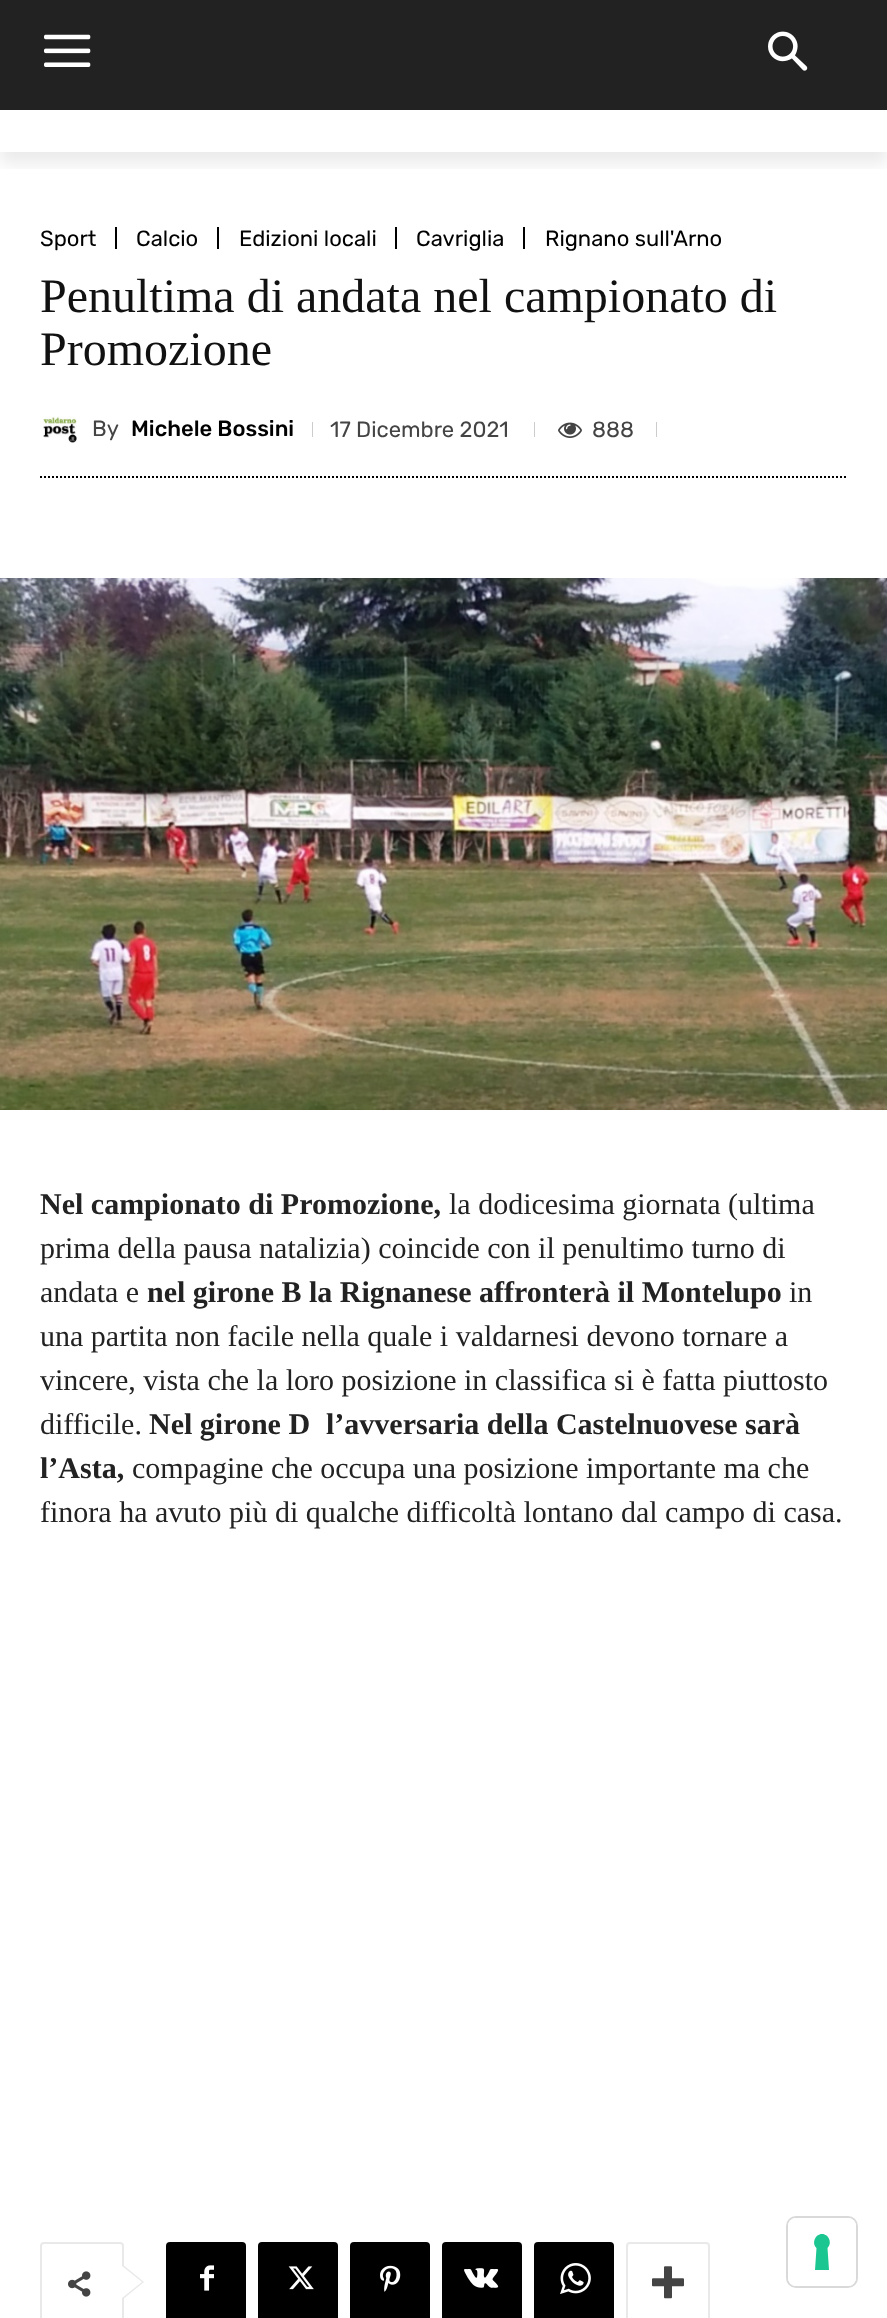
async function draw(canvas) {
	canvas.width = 887;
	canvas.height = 2318;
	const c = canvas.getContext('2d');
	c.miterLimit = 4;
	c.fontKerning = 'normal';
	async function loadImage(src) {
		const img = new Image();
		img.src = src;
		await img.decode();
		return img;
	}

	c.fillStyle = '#fff';
	c.fillRect(0, 0, 887, 2318);
	c.fillStyle = '#222';
	c.fillRect(0, 0, 887, 110);
	c.drawImage(await loadImage('img1.png'), 44, 34, 47, 33);
	c.drawImage(await loadImage('img2.png'), 768, 31, 40, 40);
	c.save();
	c.beginPath();
	c.rect(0, 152, 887, 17);
	c.clip();
	c.fillStyle = '#00000014';
	c.filter = 'blur(8px)';
	c.beginPath();
	c.rect(0, 12, 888, 152);
	c.fill();
	c.filter = 'none';
	c.restore();
	c.font = '22px Rubik';
	c.fillStyle = '#000';
	c.fillText('Sport', 40, 246);
	c.fillRect(115, 227, 2, 22);
	c.fillText('Calcio', 136, 246);
	c.fillRect(217, 227, 2, 22);
	c.fillText('Edizioni locali', 239, 246);
	c.fillRect(395, 227, 2, 22);
	c.fillText('Cavriglia', 416, 246);
	c.fillRect(523, 227, 2, 22);
	c.fillText('Rignano sull\'Arno', 545, 246);
	c.font = '48px Liberation Serif';
	c.fillStyle = '#111';
	c.fillText('Penultima di andata nel campionato di', 40, 312);
	c.fillText('Promozione', 40, 365);
	c.drawImage(await loadImage('img3.png'), 42, 416, 35, 27);
	c.font = '22px Rubik';
	c.fillStyle = '#444';
	c.fillText('By', 92, 436);
	c.font = '500 22px Rubik';
	c.fillStyle = '#000';
	c.fillText('Michele Bossini', 131, 436);
	c.fillStyle = '#ccc';
	c.fillRect(312, 422, 1, 15);
	c.font = '22px Rubik';
	c.fillStyle = '#444';
	c.fillText('17 Dicembre 2021', 330, 437);
	c.fillStyle = '#ccc';
	c.fillRect(534, 422, 1, 15);
	c.drawImage(await loadImage('img4.png'), 558, 422, 24, 16);
	c.fillStyle = '#444';
	c.fillText('888', 592, 437);
	c.fillStyle = '#ccc';
	c.fillRect(656, 422, 1, 15);
	c.beginPath();
	c.moveTo(40, 477);
	c.lineTo(848, 477);
	c.strokeStyle = '#000';
	c.lineWidth = 2;
	c.setLineDash([2, 2]);
	c.stroke();
	c.drawImage(await loadImage('img5.png'), 0, 578, 887, 532);
	c.font = 'bold 30px Liberation Serif';
	c.fillStyle = '#222';
	c.fillText('Nel campionato di Promozione,', 40, 1214);
	c.font = '30px Liberation Serif';
	for (const [text, x, y] of [
		['la dodicesima giornata (ultima', 449, 1214],
		['prima della pausa natalizia) coincide con il penultimo turno di', 40, 1258],
		['andata e', 40, 1302],
	]) {
		c.fillText(text, x, y);
	}
	c.font = 'bold 30px Liberation Serif';
	c.fillText('nel girone B la Rignanese affronterà il Montelupo', 147, 1302);
	c.font = '30px Liberation Serif';
	for (const [text, x, y] of [
		['in', 789, 1302],
		['una partita non facile nella quale i valdarnesi devono tornare a', 40, 1346],
		['vincere, vista che la loro posizione in classifica si è fatta piuttosto', 40, 1390],
		['difficile.', 40, 1434],
	]) {
		c.fillText(text, x, y);
	}
	c.font = 'bold 30px Liberation Serif';
	for (const [text, x, y] of [
		['Nel girone D', 149, 1434],
		['l’avversaria della Castelnuovese sarà', 326, 1434],
		['l’Asta,', 40, 1478],
	]) {
		c.fillText(text, x, y);
	}
	c.font = '30px Liberation Serif';
	c.fillText('compagine che occupa una posizione importante ma che', 132, 1478);
	c.fillText('finora ha avuto più di qualche difficoltà lontano dal campo di casa.', 40, 1522);
	c.beginPath();
	c.roundRect(41, 2243, 82, 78, 3);
	c.strokeStyle = '#e9e9e9';
	c.setLineDash([]);
	c.stroke();
	c.fillStyle = '#e9e9e9';
	c.beginPath();
	c.moveTo(122, 2300);
	c.lineTo(122, 2264);
	c.lineTo(144, 2282);
	c.closePath();
	c.fill();
	c.drawImage(await loadImage('img6.png'), 68, 2271, 23, 26);
	c.fillStyle = '#fff';
	c.beginPath();
	c.moveTo(122, 2298);
	c.lineTo(122, 2266);
	c.lineTo(142, 2282);
	c.closePath();
	c.fill();
	c.fillStyle = '#000';
	c.beginPath();
	c.roundRect(166, 2242, 80, 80, 4);
	c.fill();
	c.drawImage(await loadImage('img7.png'), 200, 2265, 14, 26);
	c.beginPath();
	c.roundRect(258, 2242, 80, 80, 4);
	c.fill();
	c.drawImage(await loadImage('img8.png'), 288, 2266, 26, 24);
	c.beginPath();
	c.roundRect(350, 2242, 80, 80, 4);
	c.fill();
	c.drawImage(await loadImage('img9.png'), 380, 2265, 21, 27);
	c.beginPath();
	c.roundRect(442, 2242, 80, 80, 4);
	c.fill();
	c.drawImage(await loadImage('img10.png'), 464, 2268, 35, 20);
	c.beginPath();
	c.roundRect(534, 2242, 80, 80, 4);
	c.fill();
	c.drawImage(await loadImage('img11.png'), 560, 2263, 31, 31);
	c.beginPath();
	c.roundRect(627, 2243, 82, 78, 3);
	c.stroke();
	c.drawImage(await loadImage('img12.png'), 652, 2266, 32, 33);
	c.beginPath();
	c.roundRect(787, 2217, 70, 70, 9);
	c.strokeStyle = '#d9d9d9';
	c.stroke();
	c.fillStyle = '#fff';
	c.beginPath();
	c.roundRect(788, 2218, 68, 68, 8);
	c.fill();
	c.fillStyle = '#1cc691';
	c.beginPath();
	c.moveTo(822, 2234);
	c.bezierCurveTo(829, 2234, 832.5, 2243.5, 827.5, 2248);
	c.lineTo(829, 2270);
	c.lineTo(815, 2270);
	c.lineTo(816.5, 2248);
	c.bezierCurveTo(811.5, 2243.5, 815, 2234, 822, 2234);
	c.closePath();
	c.fill('evenodd');
}

draw(document.querySelector('canvas'));
